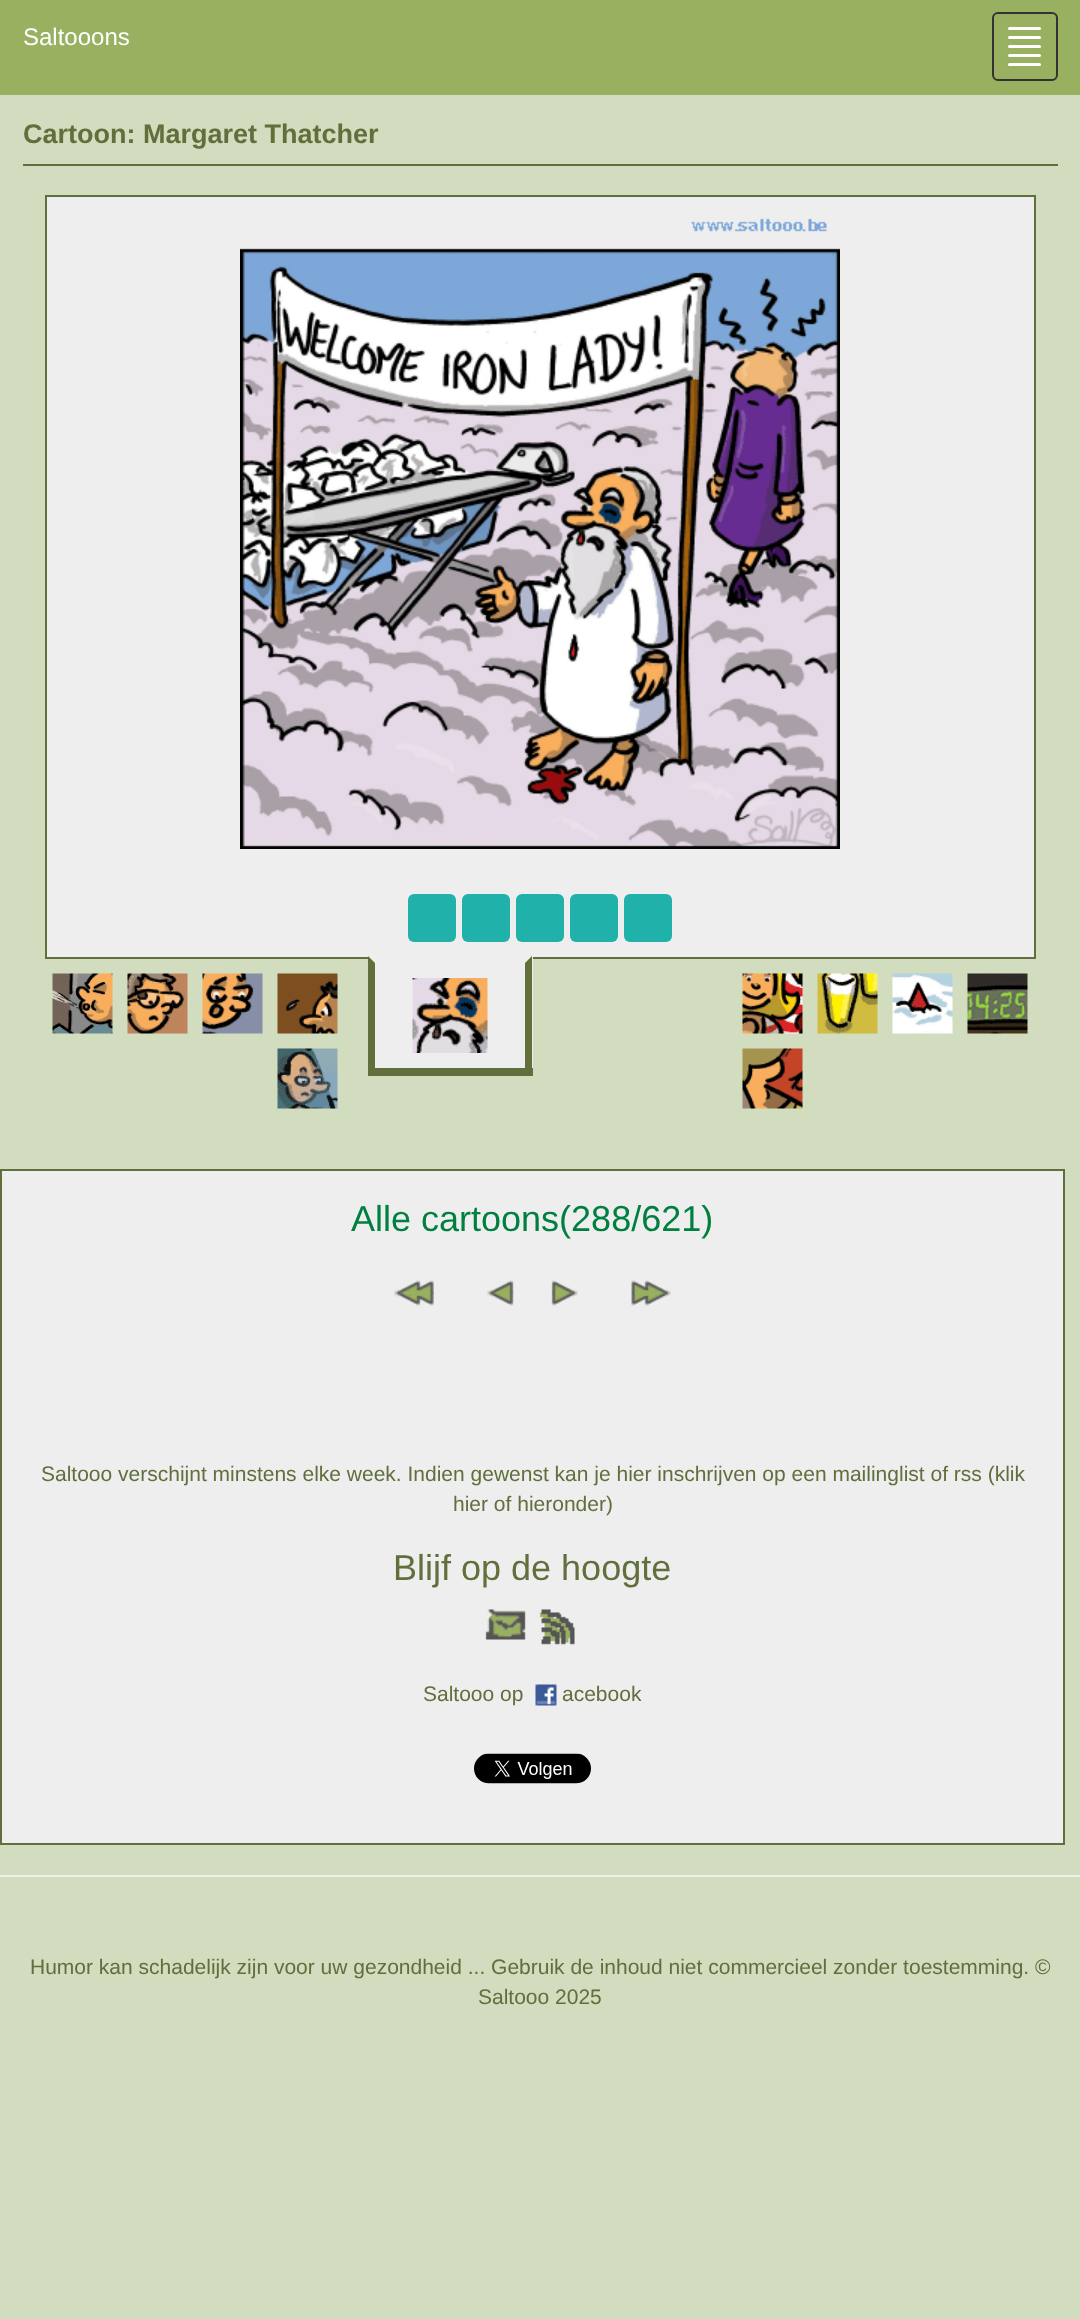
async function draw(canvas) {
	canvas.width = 1080;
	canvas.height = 2319;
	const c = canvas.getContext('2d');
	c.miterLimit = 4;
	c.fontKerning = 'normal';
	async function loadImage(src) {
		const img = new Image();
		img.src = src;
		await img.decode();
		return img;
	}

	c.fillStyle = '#d2dcbe';
	c.fillRect(0, 0, 1080, 2319);
	c.fillStyle = '#99b060';
	c.fillRect(0, 0, 1080, 95);
	c.font = '24px Liberation Sans';
	c.fillStyle = '#fff';
	c.fillText('Saltooons', 23, 45);
	c.beginPath();
	c.roundRect(993, 13, 64, 67, 5);
	c.strokeStyle = '#333';
	c.lineWidth = 2;
	c.stroke();
	c.beginPath();
	c.roundRect(1008, 27, 33, 3, 1.5);
	c.fill();
	c.beginPath();
	c.roundRect(1008, 36, 33, 3, 1.5);
	c.fill();
	c.beginPath();
	c.roundRect(1008, 45, 33, 3, 1.5);
	c.fill();
	c.beginPath();
	c.roundRect(1008, 54, 33, 3, 1.5);
	c.fill();
	c.beginPath();
	c.roundRect(1008, 63, 33, 3, 1.5);
	c.fill();
	c.fillStyle = '#606f3c';
	c.fillRect(23, 164, 1035, 2);
	c.font = 'bold 27px Liberation Sans';
	c.fillText('Cartoon: Margaret Thatcher', 23, 143);
	for (const [x, y, w, h, color] of [
		[47, 197, 987, 760, '#eee'],
		[45, 195, 990, 2, '#606f3c'],
		[1034, 195, 2, 764, '#606f3c'],
		[45, 195, 2, 654, '#606f3c'],
	]) {
		c.fillStyle = color;
		c.fillRect(x, y, w, h);
	}
	c.drawImage(await loadImage('img1.png'), 240, 218, 600, 631);
	c.fillRect(45, 957, 990, 2);
	c.fillRect(45, 849, 2, 110);
	c.fillStyle = '#20b2aa';
	c.beginPath();
	c.roundRect(408, 894, 48, 48, 6);
	c.fill();
	c.beginPath();
	c.roundRect(462, 894, 48, 48, 6);
	c.fill();
	c.beginPath();
	c.roundRect(516, 894, 48, 48, 6);
	c.fill();
	c.beginPath();
	c.roundRect(570, 894, 48, 48, 6);
	c.fill();
	c.beginPath();
	c.roundRect(624, 894, 48, 48, 6);
	c.fill();
	c.drawImage(await loadImage('img2.png'), 52, 973, 61, 61);
	c.drawImage(await loadImage('img3.png'), 127, 973, 61, 61);
	c.drawImage(await loadImage('img4.png'), 202, 973, 61, 61);
	c.drawImage(await loadImage('img5.png'), 277, 973, 61, 61);
	c.drawImage(await loadImage('img6.png'), 277, 1048, 61, 61);
	c.fillStyle = '#eee';
	c.fillRect(368, 957, 165, 111);
	c.fillStyle = '#606f3c';
	c.beginPath();
	c.moveTo(532, 956);
	c.lineTo(532, 1076);
	c.lineTo(525, 1068);
	c.lineTo(525, 963);
	c.closePath();
	c.fill();
	c.fillRect(368, 1068, 165, 8);
	c.beginPath();
	c.moveTo(368, 1076);
	c.lineTo(368, 956);
	c.lineTo(375, 963);
	c.lineTo(375, 1068);
	c.closePath();
	c.fill();
	c.drawImage(await loadImage('img7.png'), 412, 978, 76, 75);
	c.drawImage(await loadImage('img8.png'), 742, 973, 61, 61);
	c.drawImage(await loadImage('img9.png'), 817, 973, 61, 61);
	c.drawImage(await loadImage('img10.png'), 892, 973, 61, 61);
	c.drawImage(await loadImage('img11.png'), 967, 973, 61, 61);
	c.drawImage(await loadImage('img12.png'), 742, 1048, 61, 61);
	c.fillStyle = '#eee';
	c.beginPath();
	c.rect(1, 1170, 1063, 674);
	c.fill();
	c.strokeStyle = '#606f3c';
	c.stroke();
	c.font = '36px Liberation Sans';
	c.fillStyle = '#008040';
	c.fillText('Alle cartoons(288/621)', 351, 1231);
	c.drawImage(await loadImage('img13.png'), 394, 1280, 40, 26);
	c.drawImage(await loadImage('img14.png'), 487, 1280, 27, 26);
	c.drawImage(await loadImage('img15.png'), 551, 1280, 27, 26);
	c.drawImage(await loadImage('img16.png'), 631, 1280, 40, 26);
	c.font = '21px Liberation Sans';
	c.fillStyle = '#606f3c';
	c.fillText('Saltooo verschijnt minstens elke week. Indien gewenst kan je hier inschrijven op een mailinglist of rss (klik', 41, 1481);
	c.fillText('hier of hieronder)', 453, 1511);
	c.font = '36px Liberation Sans';
	c.fillText('Blijf op de hoogte', 393, 1580);
	c.drawImage(await loadImage('img17.png'), 485, 1609, 41, 31);
	c.drawImage(await loadImage('img18.png'), 539, 1609, 36, 36);
	c.font = '21px Liberation Sans';
	c.fillText('Saltooo op', 423, 1701);
	c.drawImage(await loadImage('img19.png'), 535, 1684, 22, 22);
	c.fillText('acebook', 562, 1701);
	c.drawImage(await loadImage('img20.png'), 474, 1753, 117, 31);
	c.fillStyle = '#eee';
	c.fillRect(0, 1875, 1080, 2);
	c.fillStyle = '#606f3c';
	c.fillText('Humor kan schadelijk zijn voor uw gezondheid ... Gebruik de inhoud niet commercieel zonder toestemming. ©', 30, 1974);
	c.fillText('Saltooo 2025', 478, 2004);
}

draw(document.querySelector('canvas'));
